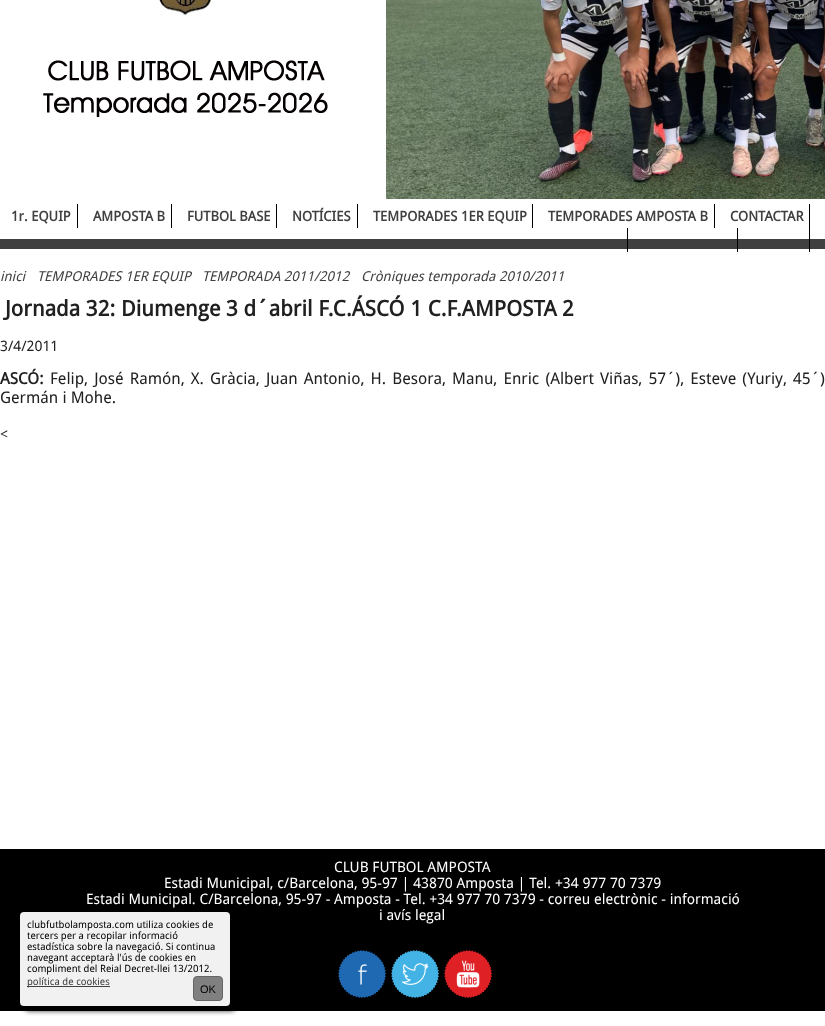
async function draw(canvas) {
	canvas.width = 825;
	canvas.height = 1026;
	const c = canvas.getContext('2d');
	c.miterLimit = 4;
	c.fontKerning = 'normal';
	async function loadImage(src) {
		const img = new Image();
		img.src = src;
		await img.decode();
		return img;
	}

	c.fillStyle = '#fff';
	c.fillRect(0, 0, 825, 1026);
	c.drawImage(await loadImage('img1.png'), 0, 0, 825, 199);
	c.fillStyle = '#404040';
	c.fillRect(0, 239, 825, 10);
	c.fillStyle = '#000';
	c.fillRect(77, 204, 1, 24);
	c.font = 'bold 13.7px Droid Sans';
	c.fillStyle = '#404040';
	c.fillText('1r. EQUIP', 11, 221);
	c.fillStyle = '#000';
	c.fillRect(171, 204, 1, 24);
	c.fillStyle = '#404040';
	c.fillText('AMPOSTA B', 93, 221);
	c.fillStyle = '#000';
	c.fillRect(276, 204, 1, 24);
	c.fillStyle = '#404040';
	c.fillText('FUTBOL BASE', 187, 221);
	c.fillStyle = '#000';
	c.fillRect(357, 204, 1, 24);
	c.fillStyle = '#404040';
	c.fillText('NOTÍCIES', 292, 221);
	c.fillStyle = '#000';
	c.fillRect(532, 204, 1, 24);
	c.fillStyle = '#404040';
	c.fillText('TEMPORADES 1ER EQUIP', 373, 221);
	c.fillStyle = '#000';
	c.fillRect(714, 204, 1, 24);
	c.fillStyle = '#404040';
	c.fillText('TEMPORADES AMPOSTA B', 548, 221);
	c.fillStyle = '#000';
	c.fillRect(809, 204, 1, 48);
	c.fillStyle = '#404040';
	c.fillText('CONTACTAR', 730, 221);
	c.fillStyle = '#000';
	c.fillRect(627, 228, 1, 24);
	c.fillRect(737, 228, 1, 24);
	c.font = 'italic 13.7px Droid Sans';
	c.fillStyle = '#404040';
	for (const [text, x, y] of [
		['inici', 0, 281],
		['TEMPORADES 1ER EQUIP', 37, 281],
		['TEMPORADA 2011/2012', 202, 281],
		['Cròniques temporada 2010/2011', 361, 281],
	]) {
		c.fillText(text, x, y);
	}
	c.font = 'bold 21.6px Droid Sans';
	c.fillStyle = '#202020';
	c.fillText('Jornada 32: Diumenge 3 d´abril F.C.ÁSCÓ 1 C.F.AMPOSTA 2', 5, 316);
	c.font = '14.4px Droid Sans';
	c.fillText('3/4/2011', 0, 351);
	c.font = 'bold 16px Droid Sans';
	c.fillText('ASCÓ:', 0, 384);
	c.wordSpacing = '2px';
	c.font = '16px Droid Sans';
	c.fillText('Felip, José Ramón, X. Gràcia, Juan Antonio, H. Besora, Manu, Enric (Albert Viñas, 57´), Esteve (Yuriy, 45´)', 50, 384);
	c.wordSpacing = '0px';
	c.fillText('Germán i Mohe.', 0, 403);
	c.font = '14.4px Droid Sans';
	c.fillText('<', 0, 439);
	c.fillStyle = '#000';
	c.fillRect(0, 849, 825, 162);
	c.fillStyle = '#fff';
	for (const [text, x, y] of [
		['CLUB FUTBOL AMPOSTA', 334, 872],
		['Estadi Municipal, c/Barcelona, 95-97 | 43870 Amposta | Tel. +34 977 70 7379', 164, 888],
		['Estadi Municipal. C/Barcelona, 95-97 - Amposta - Tel. +34 977 70 7379 - correu electrònic - informació', 86, 904],
		['i avís legal', 379, 920],
	]) {
		c.fillText(text, x, y);
	}
	c.drawImage(await loadImage('img2.png'), 338, 950, 48, 48);
	c.drawImage(await loadImage('img3.png'), 391, 950, 48, 48);
	c.drawImage(await loadImage('img4.png'), 444, 950, 48, 48);
	c.fillStyle = '#000000bf';
	c.filter = 'blur(2.5px)';
	c.beginPath();
	c.roundRect(25, 917, 210, 94, 4);
	c.fill();
	c.filter = 'none';
	c.fillStyle = '#f1f1f1';
	c.beginPath();
	c.roundRect(20, 912, 210, 94, 4);
	c.fill();
	c.font = '10px Droid Sans';
	c.fillStyle = '#000';
	for (const [text, x, y] of [
		['clubfutbolamposta.com utiliza cookies de', 27, 928],
		['tercers per a recopilar informació', 27, 939],
		['estadística sobre la navegació. Si continua', 27, 950],
		['navegant acceptarà l\'ús de cookies en', 27, 961],
		['compliment del Reial Decret-llei 13/2012.', 27, 972],
	]) {
		c.fillText(text, x, y);
	}
	c.fillStyle = '#404040';
	c.fillRect(27, 986, 83, 1);
	c.fillText('política de cookies', 27, 985);
	c.fillStyle = '#808080';
	c.beginPath();
	c.roundRect(193.5, 976.5, 29, 24, 3.5);
	c.fill();
	c.strokeStyle = '#666';
	c.stroke();
	c.font = '11px Liberation Sans';
	c.fillStyle = '#000';
	c.fillText('OK', 200, 993);
}

draw(document.querySelector('canvas'));
